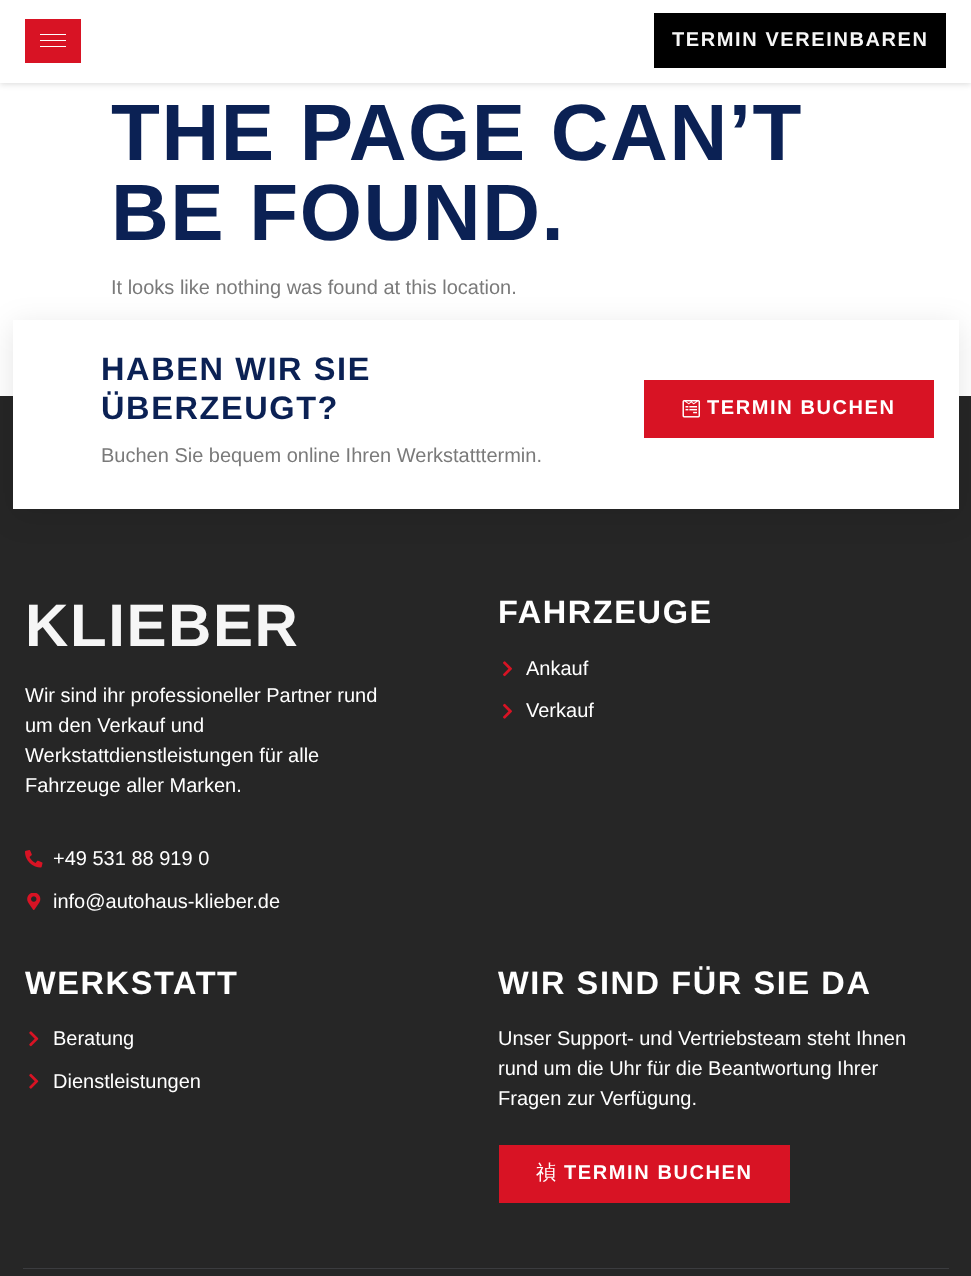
async function draw(canvas) {
	canvas.width = 971;
	canvas.height = 1276;
	const c = canvas.getContext('2d');
	c.miterLimit = 4;
	c.fontKerning = 'normal';
	async function loadImage(src) {
		const img = new Image();
		img.src = src;
		await img.decode();
		return img;
	}

	c.fillStyle = '#fff';
	c.fillRect(0, 0, 971, 1276);
	c.save();
	c.beginPath();
	c.moveTo(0, 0);
	c.lineTo(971, 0);
	c.lineTo(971, 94);
	c.lineTo(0, 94);
	c.closePath();
	c.moveTo(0, -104);
	c.lineTo(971, -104);
	c.lineTo(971, 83);
	c.lineTo(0, 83);
	c.closePath();
	c.clip('evenodd');
	c.fillStyle = '#00000026';
	c.filter = 'blur(3px)';
	c.beginPath();
	c.rect(0, -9, 971, 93);
	c.fill();
	c.filter = 'none';
	c.restore();
	for (const [x, y, w, h, color] of [
		[25, 19, 56, 44, '#d81324'],
		[40, 34, 26, 1, '#fff'],
		[40, 40, 26, 1, '#fff'],
		[40, 46, 26, 1, '#fff'],
		[654, 13, 292, 55, '#000'],
	]) {
		c.fillStyle = color;
		c.fillRect(x, y, w, h);
	}
	c.letterSpacing = '1.6px';
	c.font = 'bold 20px Liberation Sans';
	c.fillStyle = '#f6f6f6';
	c.fillText('TERMIN VEREINBAREN', 672, 46);
	c.font = 'bold 80px Liberation Sans';
	c.fillStyle = '#0b2154';
	c.fillText('THE PAGE CAN’T', 111, 160);
	c.fillText('BE FOUND.', 111, 240);
	c.letterSpacing = '0px';
	c.font = '20px Liberation Sans';
	c.fillStyle = '#7a7a7a';
	c.fillText('It looks like nothing was found at this location.', 111, 294);
	c.fillStyle = '#262626';
	c.fillRect(0, 396, 971, 880);
	c.fillStyle = '#0000001a';
	c.filter = 'blur(15.5px)';
	c.beginPath();
	c.rect(13, 326, 946, 189);
	c.fill();
	c.filter = 'none';
	c.fillStyle = '#fff';
	c.fillRect(13, 320, 946, 189);
	c.letterSpacing = '1.6px';
	c.font = 'bold 32.5px Liberation Sans';
	c.fillStyle = '#0b2154';
	c.fillText('HABEN WIR SIE', 101, 380);
	c.fillText('ÜBERZEUGT?', 101, 419);
	c.letterSpacing = '0px';
	c.font = '20px Liberation Sans';
	c.fillStyle = '#7a7a7a';
	c.fillText('Buchen Sie bequem online Ihren Werkstatttermin.', 101, 462);
	c.fillStyle = '#d81324';
	c.fillRect(644, 380, 290, 58);
	c.drawImage(await loadImage('img1.png'), 682, 400, 18, 18);
	c.letterSpacing = '1.6px';
	c.font = 'bold 20px Liberation Sans';
	c.fillStyle = '#fff';
	c.fillText('TERMIN BUCHEN', 707, 414);
	c.font = 'bold 60px Liberation Sans';
	c.fillStyle = '#f6f6f6';
	c.fillText('KLIEBER', 25, 646);
	c.letterSpacing = '0px';
	c.font = '20px Liberation Sans';
	c.fillStyle = '#fff';
	for (const [text, x, y] of [
		['Wir sind ihr professioneller Partner rund', 25, 702],
		['um den Verkauf und', 25, 732],
		['Werkstattdienstleistungen für alle', 25, 762],
		['Fahrzeuge aller Marken.', 25, 792],
	]) {
		c.fillText(text, x, y);
	}
	c.drawImage(await loadImage('img2.png'), 25, 850, 18, 18);
	c.fillText('+49 531 88 919 0', 53, 865);
	c.drawImage(await loadImage('img3.png'), 27, 893, 14, 17);
	c.fillText('info@autohaus-klieber.de', 53, 908);
	c.letterSpacing = '1.6px';
	c.font = 'bold 32.5px Liberation Sans';
	c.fillText('FAHRZEUGE', 498, 623);
	c.drawImage(await loadImage('img4.png'), 503, 661, 9, 16);
	c.letterSpacing = '0px';
	c.font = '20px Liberation Sans';
	c.fillText('Ankauf', 526, 675);
	c.drawImage(await loadImage('img5.png'), 503, 703, 9, 16);
	c.fillText('Verkauf', 526, 717);
	c.letterSpacing = '1.6px';
	c.font = 'bold 32.5px Liberation Sans';
	c.fillText('WERKSTATT', 25, 994);
	c.drawImage(await loadImage('img6.png'), 29, 1031, 10, 16);
	c.letterSpacing = '0px';
	c.font = '20px Liberation Sans';
	c.fillText('Beratung', 53, 1045);
	c.drawImage(await loadImage('img7.png'), 29, 1073, 10, 16);
	c.fillText('Dienstleistungen', 53, 1088);
	c.letterSpacing = '1.6px';
	c.font = 'bold 32.5px Liberation Sans';
	c.fillText('WIR SIND FÜR SIE DA', 498, 994);
	c.letterSpacing = '0px';
	c.font = '20px Liberation Sans';
	for (const [text, x, y] of [
		['Unser Support- und Vertriebsteam steht Ihnen', 498, 1045],
		['rund um die Uhr für die Beantwortung Ihrer', 498, 1075],
		['Fragen zur Verfügung.', 498, 1105],
	]) {
		c.fillText(text, x, y);
	}
	c.fillStyle = '#d81324';
	c.fillRect(499, 1145, 291, 58);
	c.letterSpacing = '1.6px';
	c.font = '500 20px WenQuanYi Zen Hei';
	c.fillStyle = '#fff';
	c.fillText('禎', 536, 1179);
	c.font = 'bold 20px Liberation Sans';
	c.fillText('TERMIN BUCHEN', 564, 1179);
	c.fillStyle = '#3b3c3f';
	c.fillRect(23, 1268, 926, 1);
}

draw(document.querySelector('canvas'));
